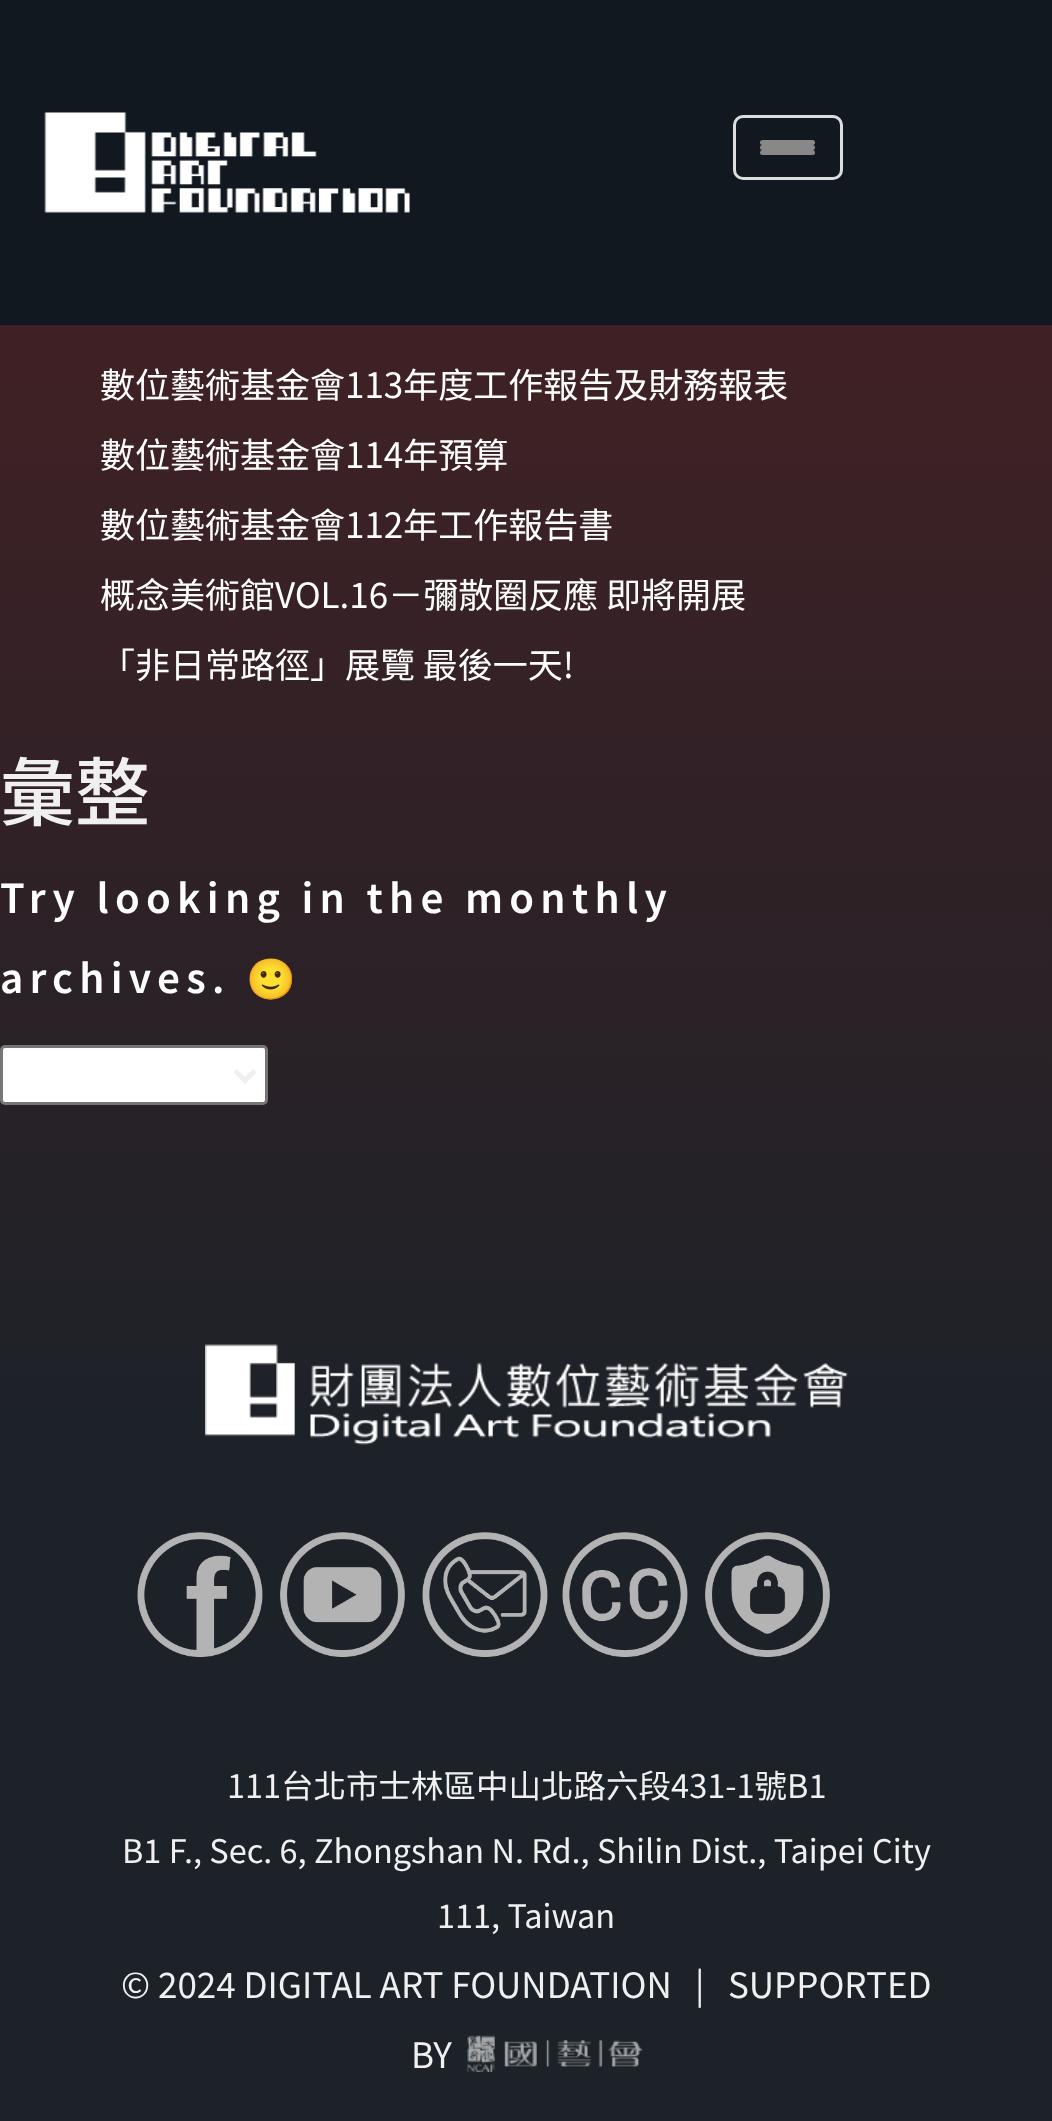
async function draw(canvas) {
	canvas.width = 1052;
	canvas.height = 2121;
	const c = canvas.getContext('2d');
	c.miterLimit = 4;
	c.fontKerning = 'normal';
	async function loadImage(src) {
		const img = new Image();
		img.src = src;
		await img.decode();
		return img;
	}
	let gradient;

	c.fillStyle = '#fff';
	c.fillRect(0, 0, 1052, 2121);
	c.fillStyle = '#111820';
	c.fillRect(0, 0, 1052, 325);
	c.drawImage(await loadImage('img1.png'), 44, 112, 366, 101);
	c.beginPath();
	c.roundRect(734.5, 116.5, 107, 62, 8.5);
	c.strokeStyle = '#ddd';
	c.lineWidth = 3;
	c.stroke();
	c.fillStyle = '#888';
	c.beginPath();
	c.roundRect(760, 140, 55, 5, 2.5);
	c.fill();
	c.beginPath();
	c.roundRect(760, 145, 55, 5, 2.5);
	c.fill();
	c.beginPath();
	c.roundRect(760, 150, 55, 5, 2.5);
	c.fill();
	gradient = c.createLinearGradient(526, -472, 526, 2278);
	gradient.addColorStop(0.3, '#3f2125');
	gradient.addColorStop(0.7, '#1c2228');
	c.fillStyle = gradient;
	c.fillRect(0, 325, 1052, 1796);
	c.font = '35px Noto Sans TC';
	c.fillStyle = '#fff';
	for (const [text, x, y] of [
		['數位藝術基金會113年度工作報告及財務報表', 100, 398],
		['數位藝術基金會114年預算', 100, 468],
		['數位藝術基金會112年工作報告書', 100, 538],
		['概念美術館VOL.16－彌散圈反應 即將開展', 100, 608],
		['「非日常路徑」展覽 最後一天!', 100, 678],
	]) {
		c.fillText(text, x, y);
	}
	c.font = '500 75px Noto Sans TC';
	c.fillStyle = '#f0f0f0';
	c.fillText('彙整', 0, 820);
	c.letterSpacing = '6.25px';
	c.font = '600 40px Noto Sans TC';
	c.fillStyle = '#fff';
	c.fillText('Try looking in the monthly', 0, 913);
	c.fillText('archives.', 0, 993);
	c.font = '40px Noto Color Emoji';
	c.fillText('🙂', 246, 993);
	c.beginPath();
	c.roundRect(1.5, 1046.5, 265, 57, 3.5);
	c.fill();
	c.strokeStyle = '#767676';
	c.stroke();
	c.beginPath();
	c.moveTo(235, 1070.5);
	c.lineTo(245, 1080.5);
	c.lineTo(255, 1070.5);
	c.strokeStyle = '#f0f0f0';
	c.lineWidth = 5;
	c.stroke();
	c.drawImage(await loadImage('img2.png'), 205, 1344, 643, 101);
	c.drawImage(await loadImage('img3.png'), 137, 1532, 126, 125);
	c.drawImage(await loadImage('img4.png'), 280, 1532, 125, 125);
	c.drawImage(await loadImage('img5.png'), 422, 1532, 126, 125);
	c.drawImage(await loadImage('img6.png'), 562, 1532, 126, 125);
	c.drawImage(await loadImage('img7.png'), 705, 1532, 125, 125);
	c.letterSpacing = '0px';
	c.font = '32.5px Noto Sans TC';
	c.fillStyle = '#f0f0f0';
	for (const [text, x, y] of [
		['111台北市士林區中山北路六段431-1號B1', 227, 1798],
		['B1 F., Sec. 6, Zhongshan N. Rd., Shilin Dist., Taipei City', 122, 1863],
		['111, Taiwan', 437, 1928],
	]) {
		c.fillText(text, x, y);
	}
	c.font = '35px Noto Sans TC';
	for (const [text, x, y] of [
		['© 2024 DIGITAL ART FOUNDATION', 121, 1998],
		['|   SUPPORTED', 695, 1998],
		['BY', 411, 2068],
	]) {
		c.fillText(text, x, y);
	}
	c.drawImage(await loadImage('img8.png'), 467, 2035, 176, 37);
}

draw(document.querySelector('canvas'));
